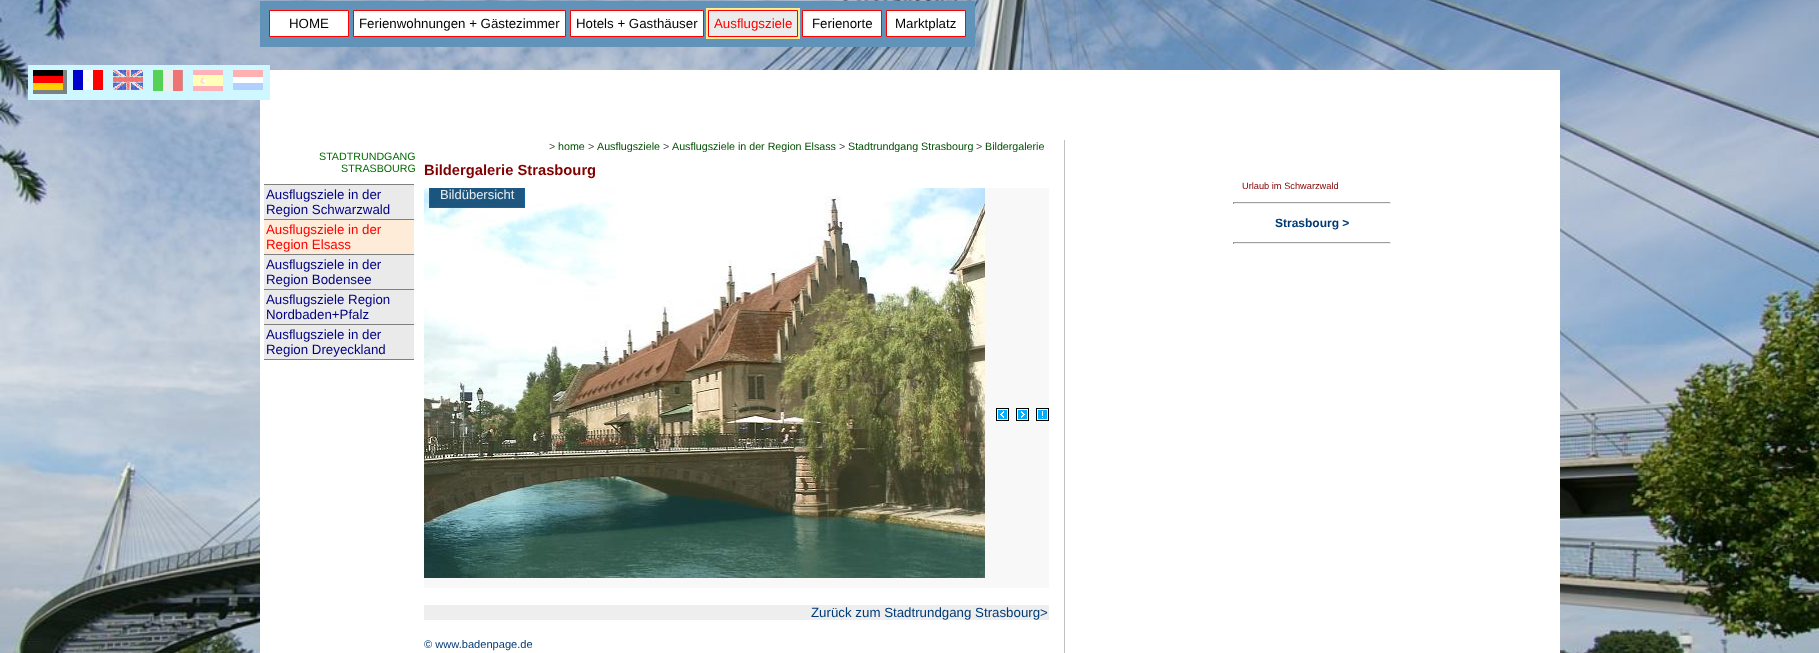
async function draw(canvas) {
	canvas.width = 1819;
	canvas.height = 653;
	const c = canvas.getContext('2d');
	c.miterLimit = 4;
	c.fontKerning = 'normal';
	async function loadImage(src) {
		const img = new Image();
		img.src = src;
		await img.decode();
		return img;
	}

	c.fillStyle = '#fff';
	c.fillRect(0, 0, 1819, 653);
	c.drawImage(await loadImage('img1.png'), 0, 0, 1819, 653);
	c.fillRect(260, 70, 1300, 583);
	c.fillStyle = '#cef7ff';
	c.fillRect(28, 65, 242, 35);
	c.drawImage(await loadImage('img2.png'), 33, 70, 34, 24);
	c.drawImage(await loadImage('img3.png'), 73, 70, 30, 20);
	c.drawImage(await loadImage('img4.png'), 113, 70, 30, 20);
	c.drawImage(await loadImage('img5.png'), 153, 70, 30, 21);
	c.drawImage(await loadImage('img6.png'), 193, 70, 30, 21);
	c.drawImage(await loadImage('img7.png'), 233, 70, 30, 20);
	c.fillStyle = '#6192b7';
	c.fillRect(260, 1, 715, 46);
	c.fillStyle = '#fff';
	c.beginPath();
	c.rect(269.5, 10.5, 79, 26);
	c.fill();
	c.strokeStyle = '#f00';
	c.stroke();
	c.font = '13.3px Liberation Sans';
	c.fillStyle = '#000';
	c.fillText('HOME', 289, 28);
	c.fillStyle = '#fff';
	c.beginPath();
	c.rect(353.5, 10.5, 212, 26);
	c.fill();
	c.stroke();
	c.fillStyle = '#000';
	c.fillText('Ferienwohnungen + Gästezimmer', 359, 28);
	c.fillStyle = '#fff';
	c.beginPath();
	c.rect(570.5, 10.5, 133, 26);
	c.fill();
	c.stroke();
	c.fillStyle = '#000';
	c.fillText('Hotels + Gasthäuser', 576, 28);
	c.fillStyle = '#fdee8e';
	c.fillRect(706, 8, 94, 31);
	c.fillStyle = '#ececec';
	c.beginPath();
	c.rect(708.5, 10.5, 89, 26);
	c.fill();
	c.stroke();
	c.fillStyle = '#f00';
	c.fillText('Ausflugsziele', 714, 28);
	c.fillStyle = '#fff';
	c.beginPath();
	c.rect(802.5, 10.5, 79, 26);
	c.fill();
	c.stroke();
	c.fillStyle = '#000';
	c.fillText('Ferienorte', 812, 28);
	c.fillStyle = '#fff';
	c.beginPath();
	c.rect(886.5, 10.5, 79, 26);
	c.fill();
	c.stroke();
	c.fillStyle = '#000';
	c.fillText('Marktplatz', 895, 28);
	c.font = '10.7px Liberation Sans';
	c.fillStyle = '#006a00';
	c.fillText('STADTRUNDGANG', 319, 160);
	c.fillText('STRASBOURG', 341, 172);
	c.fillStyle = '#808080';
	c.fillRect(264, 184, 150, 176);
	c.fillStyle = '#eaeaea';
	c.fillRect(264, 185, 150, 34);
	c.font = '13.3px Liberation Sans';
	c.fillStyle = '#000080';
	c.fillText('Ausflugsziele in der', 266, 199);
	c.fillText('Region Schwarzwald', 266, 214);
	c.fillStyle = '#feebd8';
	c.fillRect(264, 220, 150, 34);
	c.fillStyle = '#f00';
	c.fillText('Ausflugsziele in der', 266, 234);
	c.fillText('Region Elsass', 266, 249);
	c.fillStyle = '#eaeaea';
	c.fillRect(264, 255, 150, 34);
	c.fillStyle = '#000080';
	c.fillText('Ausflugsziele in der', 266, 269);
	c.fillText('Region Bodensee', 266, 284);
	c.fillStyle = '#eaeaea';
	c.fillRect(264, 290, 150, 34);
	c.fillStyle = '#000080';
	c.fillText('Ausflugsziele Region', 266, 304);
	c.fillText('Nordbaden+Pfalz', 266, 319);
	c.fillStyle = '#eaeaea';
	c.fillRect(264, 325, 150, 34);
	c.fillStyle = '#000080';
	c.fillText('Ausflugsziele in der', 266, 339);
	c.fillText('Region Dreyeckland', 266, 354);
	c.fillStyle = '#c0c0c0';
	c.fillRect(1064, 140, 1, 513);
	c.font = '10.7px Liberation Sans';
	c.fillStyle = '#3d3d3c';
	c.fillText('>', 549, 150);
	c.fillStyle = '#004f00';
	c.fillText('home', 558, 150);
	c.fillStyle = '#3d3d3c';
	c.fillText('>', 588, 150);
	c.fillStyle = '#004f00';
	c.fillText('Ausflugsziele', 597, 150);
	c.fillStyle = '#3d3d3c';
	c.fillText('>', 663, 150);
	c.fillStyle = '#004f00';
	c.fillText('Ausflugsziele in der Region Elsass', 672, 150);
	c.fillStyle = '#3d3d3c';
	c.fillText('>', 839, 150);
	c.fillStyle = '#004f00';
	c.fillText('Stadtrundgang Strasbourg', 848, 150);
	c.fillStyle = '#3d3d3c';
	c.fillText('>', 976, 150);
	c.fillStyle = '#004f00';
	c.fillText('Bildergalerie', 985, 150);
	c.fillStyle = '#fff';
	c.fillRect(628, 152, 389, 1);
	c.font = 'bold 14.75px Liberation Sans';
	c.fillStyle = '#800000';
	c.fillText('Bildergalerie Strasbourg', 424, 175);
	c.fillStyle = '#f8f8f8';
	c.fillRect(424, 188, 625, 400);
	c.drawImage(await loadImage('img8.png'), 424, 188, 561, 390);
	c.fillStyle = '#054471e6';
	c.fillRect(429, 188, 96, 20);
	c.save();
	c.beginPath();
	c.rect(424, 188, 625, 400);
	c.clip();
	c.strokeStyle = '#0d66a5e6';
	c.strokeRect(429.5, 186.5, 95, 21);
	c.restore();
	c.font = '13px Liberation Sans';
	c.fillStyle = '#e8eef2';
	c.fillText('Bildübersicht', 440, 199);
	c.drawImage(await loadImage('img9.png'), 996, 408, 13, 13);
	c.drawImage(await loadImage('img10.png'), 1016, 408, 13, 13);
	c.drawImage(await loadImage('img11.png'), 1036, 408, 13, 13);
	c.fillStyle = '#eee';
	c.fillRect(424, 605, 625, 15);
	c.font = '13.3px Liberation Sans';
	c.fillStyle = '#003a75';
	c.fillText('Zurück zum Stadtrundgang Strasbourg>', 811, 617);
	c.save();
	c.beginPath();
	c.rect(424, 152, 625, 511);
	c.clip();
	c.font = '11.1px Liberation Sans';
	c.fillText('© www.badenpage.de', 424, 648);
	c.restore();
	c.font = '9.25px Liberation Sans';
	c.fillStyle = '#800000';
	c.fillText('Urlaub im Schwarzwald', 1242, 189);
	for (const [x, y, w, h, color] of [
		[1233, 202, 158, 1, '#9f9f9f'],
		[1390, 202, 1, 2, '#eee'],
		[1233, 203, 158, 1, '#eee'],
		[1233, 202, 1, 2, '#9f9f9f'],
	]) {
		c.fillStyle = color;
		c.fillRect(x, y, w, h);
	}
	c.font = 'bold 12px Liberation Sans';
	c.fillStyle = '#003a75';
	c.fillText('Strasbourg >', 1275, 227);
	for (const [x, y, w, h, color] of [
		[1233, 242, 158, 1, '#9f9f9f'],
		[1390, 242, 1, 2, '#eee'],
		[1233, 243, 158, 1, '#eee'],
		[1233, 242, 1, 2, '#9f9f9f'],
	]) {
		c.fillStyle = color;
		c.fillRect(x, y, w, h);
	}
}

draw(document.querySelector('canvas'));
